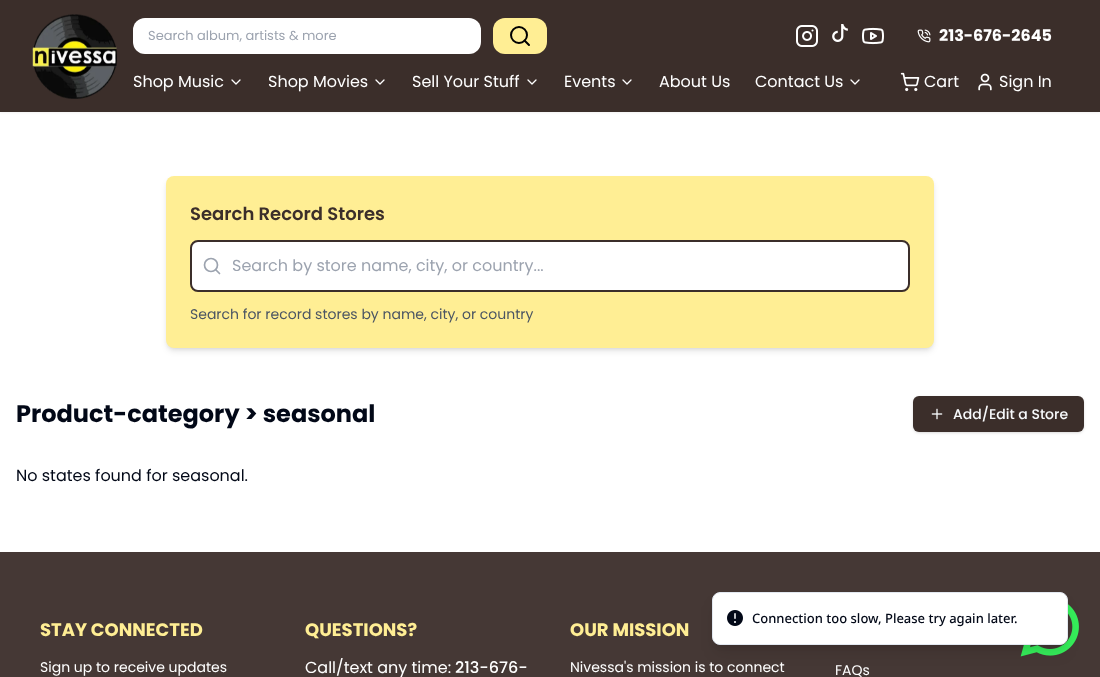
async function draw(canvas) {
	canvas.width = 1100;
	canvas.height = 677;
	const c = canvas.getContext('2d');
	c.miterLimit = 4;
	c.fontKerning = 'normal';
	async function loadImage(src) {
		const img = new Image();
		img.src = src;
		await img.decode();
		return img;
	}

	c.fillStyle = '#fff';
	c.fillRect(0, 0, 1100, 677);
	c.fillStyle = '#0000000d';
	c.filter = 'blur(1px)';
	c.beginPath();
	c.rect(0, 1, 1100, 112);
	c.fill();
	c.filter = 'none';
	c.fillStyle = '#3b2e2a';
	c.fillRect(0, 0, 1100, 112);
	c.drawImage(await loadImage('img1.png'), 32, 14, 85, 85);
	c.fillStyle = '#fff';
	c.beginPath();
	c.roundRect(133, 18, 348, 36, 12);
	c.fill();
	c.font = '13px Poppins';
	c.fillStyle = '#9ca3af';
	c.fillText('Search album, artists & more', 148, 40);
	c.fillStyle = '#ffee94';
	c.beginPath();
	c.roundRect(493, 18, 54, 36, 12);
	c.fill();
	c.beginPath();
	c.arc(519, 35, 8, 0, 2 * Math.PI);
	c.strokeStyle = '#000';
	c.lineWidth = 2;
	c.stroke();
	c.beginPath();
	c.moveTo(529, 45);
	c.lineTo(524.5, 40.5);
	c.lineCap = 'round';
	c.lineJoin = 'round';
	c.stroke();
	c.drawImage(await loadImage('img2.png'), 796, 25, 22, 22);
	c.drawImage(await loadImage('img3.png'), 832, 24, 16, 18);
	c.drawImage(await loadImage('img4.png'), 862, 27, 22, 18);
	c.drawImage(await loadImage('img5.png'), 917, 29, 14, 14);
	c.font = 'bold 16px Poppins';
	c.fillStyle = '#fff';
	c.fillText('213-676-2645', 939, 41);
	c.font = '16px Poppins';
	c.fillText('Shop Music', 133, 87);
	c.beginPath();
	c.moveTo(232, 80);
	c.lineTo(236, 84);
	c.lineTo(240, 80);
	c.strokeStyle = '#fff';
	c.lineWidth = 1.3;
	c.stroke();
	c.fillText('Shop Movies', 268, 87);
	c.beginPath();
	c.moveTo(376, 80);
	c.lineTo(380, 84);
	c.lineTo(384, 80);
	c.stroke();
	c.fillText('Sell Your Stuff', 412, 87);
	c.beginPath();
	c.moveTo(528, 80);
	c.lineTo(532, 84);
	c.lineTo(536, 80);
	c.stroke();
	c.fillText('Events', 564, 87);
	c.beginPath();
	c.moveTo(623, 80);
	c.lineTo(627, 84);
	c.lineTo(631, 80);
	c.stroke();
	c.fillText('About Us', 659, 87);
	c.fillText('Contact Us', 755, 87);
	c.beginPath();
	c.moveTo(851, 80);
	c.lineTo(855, 84);
	c.lineTo(859, 80);
	c.stroke();
	c.drawImage(await loadImage('img6.png'), 900, 72, 20, 20);
	c.fillText('Cart', 924, 87);
	c.drawImage(await loadImage('img7.png'), 978, 73, 14, 18);
	c.fillText('Sign In', 999, 87);
	c.fillStyle = '#0000001a';
	c.filter = 'blur(2px)';
	c.beginPath();
	c.roundRect(168, 180, 764, 168, 6);
	c.fill();
	c.filter = 'none';
	c.filter = 'blur(3px)';
	c.beginPath();
	c.roundRect(167, 181, 766, 170, 7);
	c.fill();
	c.filter = 'none';
	c.fillStyle = '#ffee94';
	c.beginPath();
	c.roundRect(166, 176, 768, 172, 8);
	c.fill();
	c.font = '600 18px Poppins';
	c.fillStyle = '#3b2e2a';
	c.fillText('Search Record Stores', 190, 220);
	c.fillStyle = '#fff';
	c.beginPath();
	c.roundRect(191, 241, 718, 50, 7);
	c.fill();
	c.strokeStyle = '#3b2e2a';
	c.lineWidth = 2;
	c.lineJoin = 'miter';
	c.stroke();
	c.beginPath();
	c.arc(211, 265, 6.5, 0, 2 * Math.PI);
	c.strokeStyle = '#9ca3af';
	c.lineWidth = 1.7;
	c.stroke();
	c.beginPath();
	c.moveTo(219.5, 273.5);
	c.lineTo(216, 270);
	c.lineJoin = 'round';
	c.stroke();
	c.font = '16px Poppins';
	c.fillStyle = '#9ca3af';
	c.fillText('Search by store name, city, or country...', 232, 271);
	c.font = '14px Poppins';
	c.fillStyle = '#4b5563';
	c.fillText('Search for record stores by name, city, or country', 190, 319);
	c.font = 'bold 24px Poppins';
	c.fillStyle = '#020817';
	c.fillText('Product-category > seasonal', 16, 422);
	c.fillStyle = '#0000001a';
	c.filter = 'blur(1px)';
	c.beginPath();
	c.roundRect(914, 398, 169, 34, 5);
	c.fill();
	c.filter = 'none';
	c.filter = 'blur(1.5px)';
	c.beginPath();
	c.roundRect(913, 397, 171, 36, 6);
	c.fill();
	c.filter = 'none';
	c.fillStyle = '#3b2e2a';
	c.beginPath();
	c.roundRect(913, 396, 171, 36, 6);
	c.fill();
	c.drawImage(await loadImage('img8.png'), 931, 408, 12, 12);
	c.font = '500 14px Poppins';
	c.fillStyle = '#f8fafc';
	c.fillText('Add/Edit a Store', 953, 419);
	c.font = '16px Poppins';
	c.fillStyle = '#020817';
	c.fillText('No states found for seasonal.', 16, 481);
	c.fillStyle = '#453835';
	c.fillRect(0, 552, 1100, 125);
	c.drawImage(await loadImage('img10.png'), 1020, 604, 59, 53);
	c.fillStyle = '#0000001a';
	c.filter = 'blur(3px)';
	c.beginPath();
	c.roundRect(716, 600, 348, 45, 4);
	c.fill();
	c.filter = 'none';
	c.filter = 'blur(7.5px)';
	c.beginPath();
	c.roundRect(715, 605, 350, 47, 5);
	c.fill();
	c.filter = 'none';
	c.fillStyle = '#fff';
	c.beginPath();
	c.roundRect(712.5, 592.5, 355, 52, 7.5);
	c.fill();
	c.strokeStyle = '#e2e8f0';
	c.lineWidth = 1;
	c.lineJoin = 'miter';
	c.stroke();
	c.drawImage(await loadImage('img9.png'), 727, 610, 16, 16);
	c.font = '500 13px Noto Sans';
	c.fillStyle = '#020817';
	c.fillText('Connection too slow, Please try again later.', 752, 623);
	c.font = 'bold 18px Poppins';
	c.fillStyle = '#ffee94';
	c.fillText('STAY CONNECTED', 40, 636);
	c.font = '14px Poppins';
	c.fillStyle = '#fff';
	c.fillText('Sign up to receive updates', 40, 672);
	c.font = 'bold 18px Poppins';
	c.fillStyle = '#ffee94';
	c.fillText('QUESTIONS?', 305, 636);
	c.font = '16px Poppins';
	c.fillStyle = '#fff';
	c.fillText('Call/text any time:', 305, 673);
	c.font = '500 16px Poppins';
	c.fillText('213-676-', 455, 673);
	c.font = 'bold 18px Poppins';
	c.fillStyle = '#ffee94';
	c.fillText('OUR MISSION', 570, 636);
	c.font = '14px Poppins';
	c.fillStyle = '#fff';
	c.fillText('Nivessa\'s mission is to connect', 570, 672);
	c.fillText('FAQs', 835, 675);
}

draw(document.querySelector('canvas'));
